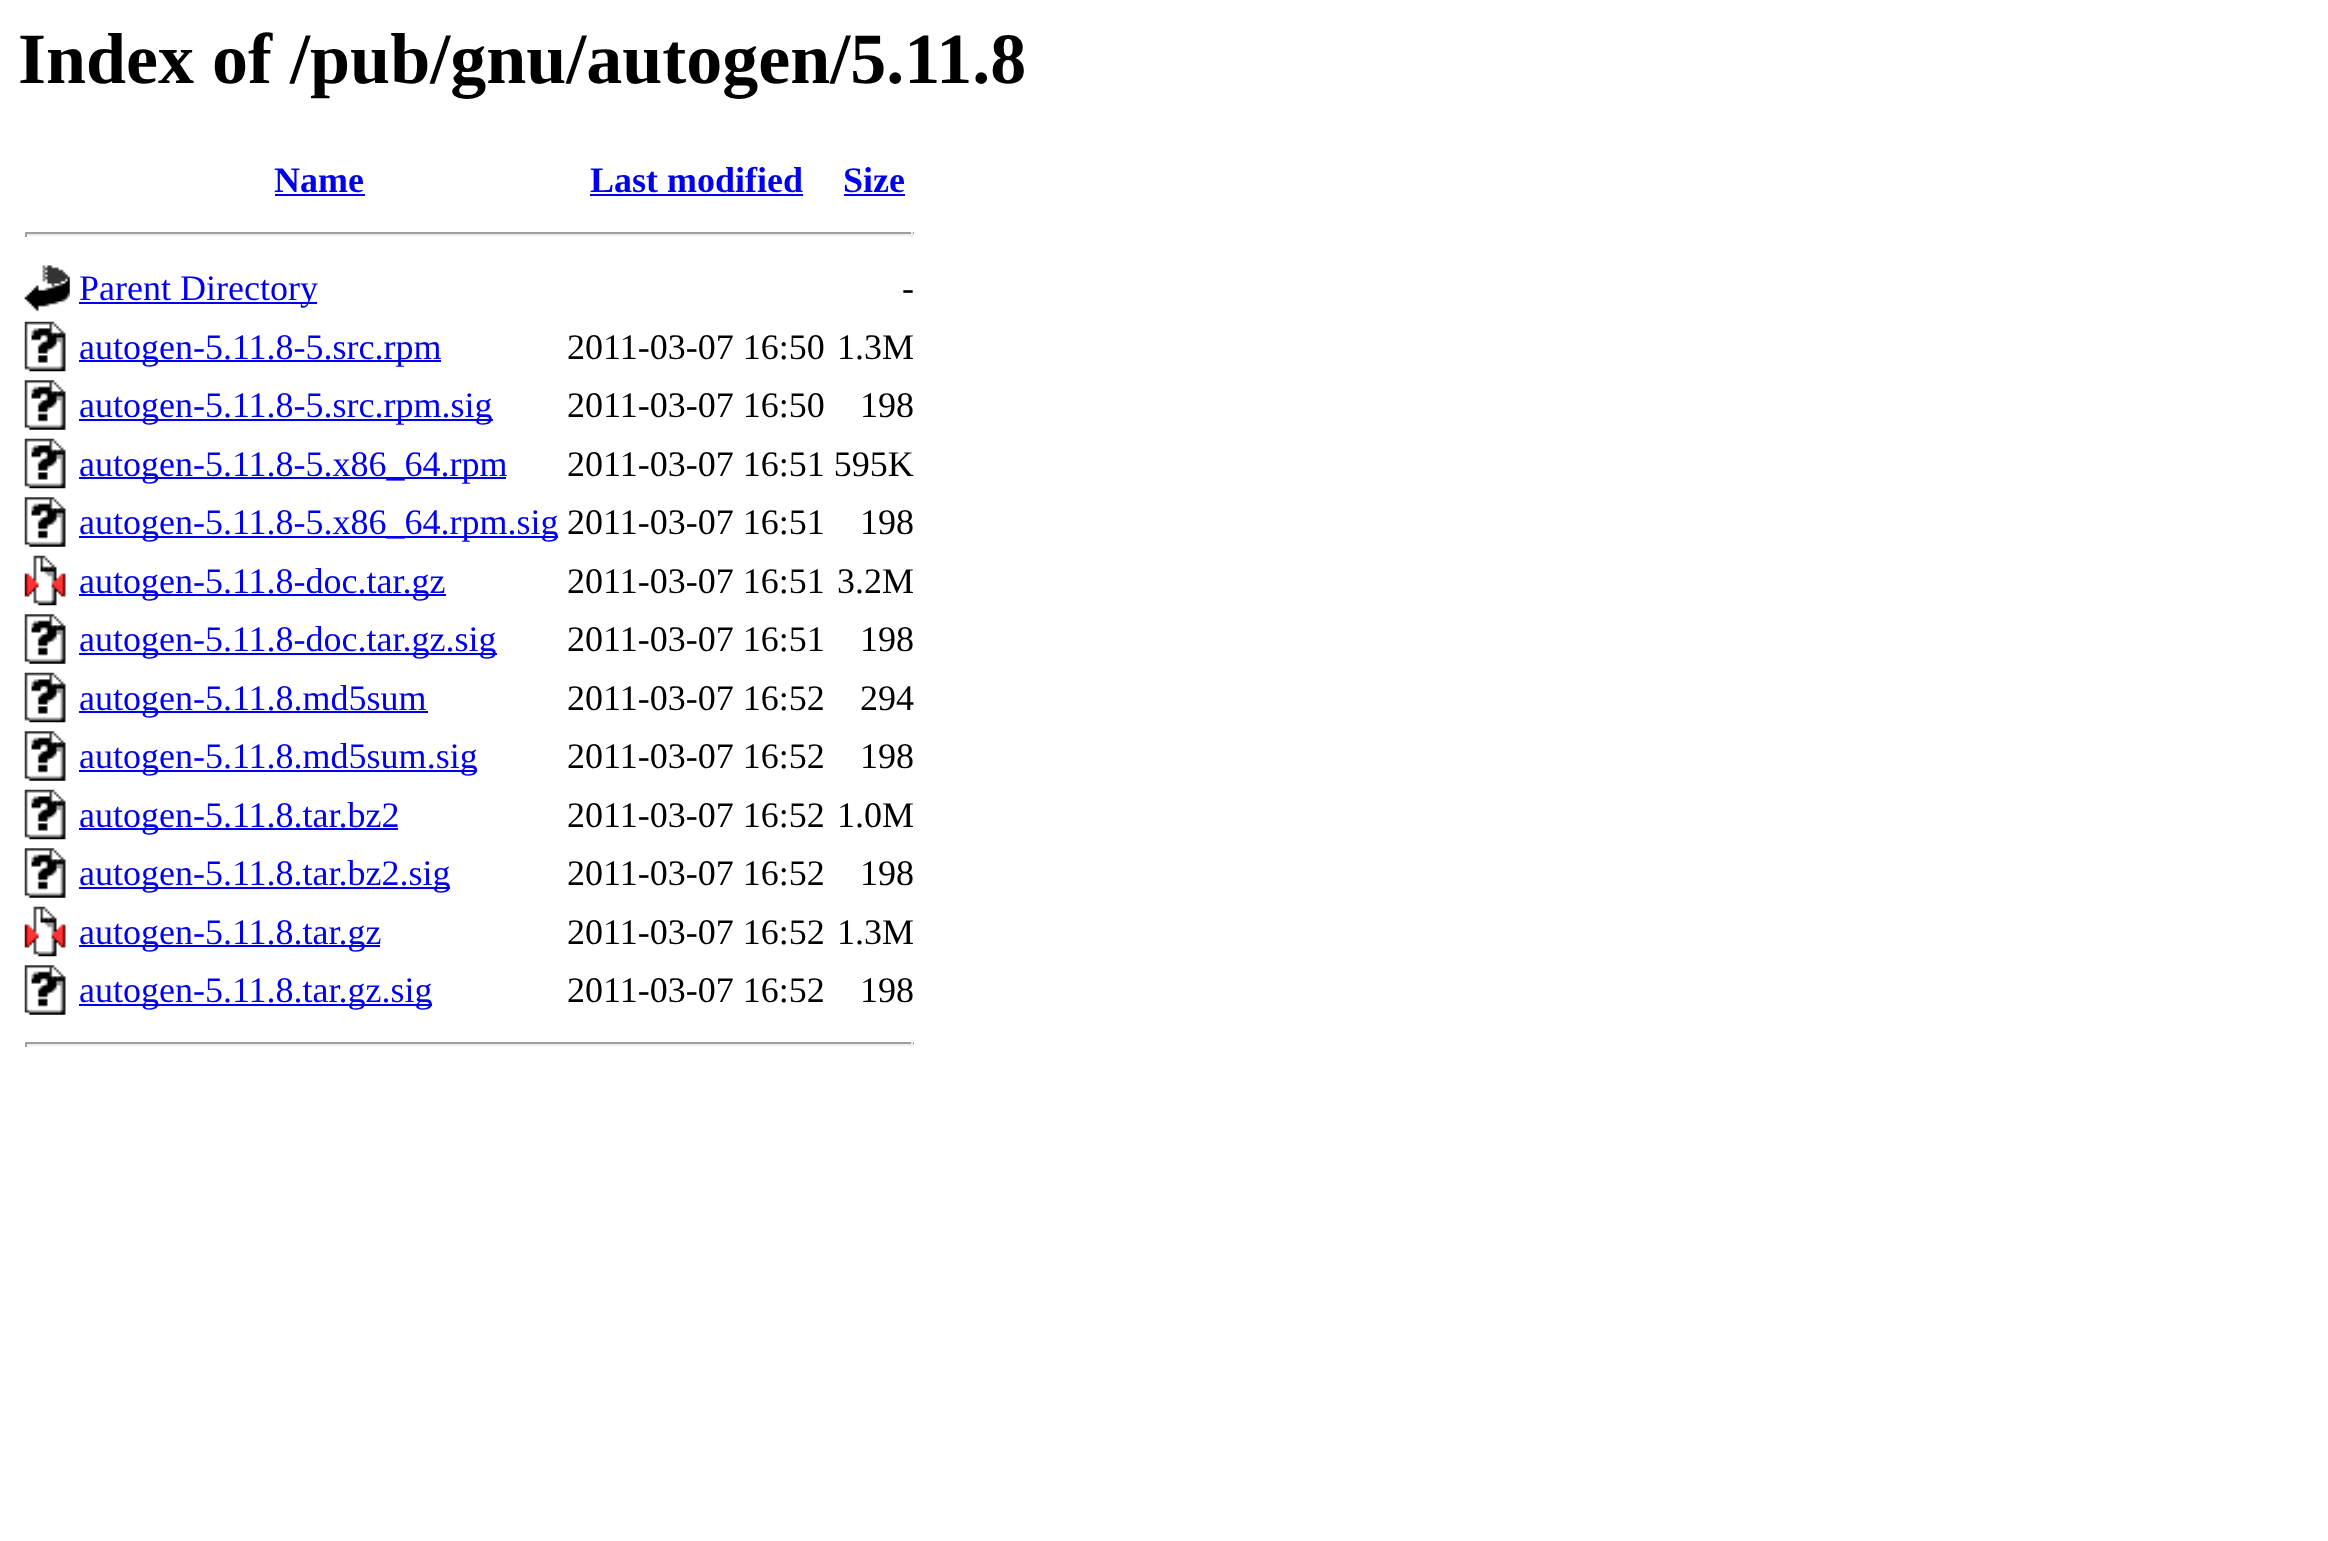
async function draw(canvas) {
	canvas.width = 2328;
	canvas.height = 1541;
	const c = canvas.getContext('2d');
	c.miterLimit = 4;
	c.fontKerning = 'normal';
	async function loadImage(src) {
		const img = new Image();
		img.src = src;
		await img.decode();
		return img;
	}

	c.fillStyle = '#fff';
	c.fillRect(0, 0, 2328, 1541);
	c.font = 'bold 72px Liberation Serif';
	c.fillStyle = '#000';
	c.fillText('Index of /pub/gnu/autogen/5.11.8', 18, 83);
	c.font = 'bold 36px Liberation Serif';
	c.fillStyle = '#00e';
	c.fillText('Name', 274, 192);
	c.fillRect(275, 194, 90, 2);
	c.fillText('Last modified', 590, 192);
	c.fillRect(590, 194, 213, 2);
	c.fillText('Size', 843, 192);
	for (const [x, y, w, h, color] of [
		[844, 194, 61, 2, '#00e'],
		[25, 232, 889, 2, '#9f9f9f'],
		[911, 232, 2, 5, '#eee'],
		[25, 234, 889, 2, '#eee'],
		[25, 232, 2, 5, '#9f9f9f'],
	]) {
		c.fillStyle = color;
		c.fillRect(x, y, w, h);
	}
	c.drawImage(await loadImage('img1.png'), 24, 265, 46, 47);
	c.fillStyle = '#00e';
	c.fillRect(79, 302, 238, 2);
	c.font = '36px Liberation Serif';
	c.fillText('Parent Directory', 79, 300);
	c.fillStyle = '#000';
	c.fillText('-', 902, 300);
	c.drawImage(await loadImage('img2.png'), 24, 321, 42, 51);
	c.fillStyle = '#00e';
	c.fillRect(79, 360, 362, 2);
	c.fillText('autogen-5.11.8-5.src.rpm', 79, 359);
	c.fillStyle = '#000';
	c.fillText('2011-03-07 16:50', 567, 359);
	c.fillText('1.3M', 837, 359);
	c.drawImage(await loadImage('img3.png'), 24, 380, 42, 50);
	c.fillStyle = '#00e';
	c.fillRect(79, 419, 414, 2);
	c.fillText('autogen-5.11.8-5.src.rpm.sig', 79, 417);
	c.fillStyle = '#000';
	c.fillText('2011-03-07 16:50', 567, 417);
	c.fillText('198', 860, 417);
	c.drawImage(await loadImage('img2.png'), 24, 438, 42, 51);
	c.fillStyle = '#00e';
	c.fillRect(79, 477, 427, 2);
	c.fillText('autogen-5.11.8-5.x86_64.rpm', 79, 476);
	c.fillStyle = '#000';
	c.fillText('2011-03-07 16:51 595K', 567, 476);
	c.drawImage(await loadImage('img3.png'), 24, 497, 42, 50);
	c.fillStyle = '#00e';
	c.fillRect(79, 536, 479, 2);
	c.fillText('autogen-5.11.8-5.x86_64.rpm.sig', 79, 534);
	c.fillStyle = '#000';
	c.fillText('2011-03-07 16:51', 567, 534);
	c.fillText('198', 860, 534);
	c.drawImage(await loadImage('img4.png'), 24, 555, 42, 51);
	c.fillStyle = '#00e';
	c.fillRect(79, 594, 367, 2);
	c.fillText('autogen-5.11.8-doc.tar.gz', 79, 593);
	c.fillStyle = '#000';
	c.fillText('2011-03-07 16:51', 567, 593);
	c.fillText('3.2M', 837, 593);
	c.drawImage(await loadImage('img3.png'), 24, 614, 42, 50);
	c.fillStyle = '#00e';
	c.fillRect(79, 653, 418, 2);
	c.fillText('autogen-5.11.8-doc.tar.gz.sig', 79, 651);
	c.fillStyle = '#000';
	c.fillText('2011-03-07 16:51', 567, 651);
	c.fillText('198', 860, 651);
	c.drawImage(await loadImage('img2.png'), 24, 672, 42, 51);
	c.fillStyle = '#00e';
	c.fillRect(79, 711, 349, 2);
	c.fillText('autogen-5.11.8.md5sum', 79, 710);
	c.fillStyle = '#000';
	c.fillText('2011-03-07 16:52', 567, 710);
	c.fillText('294', 860, 710);
	c.drawImage(await loadImage('img3.png'), 24, 731, 42, 50);
	c.fillStyle = '#00e';
	c.fillRect(79, 770, 398, 2);
	c.fillText('autogen-5.11.8.md5sum.sig', 79, 768);
	c.fillStyle = '#000';
	c.fillText('2011-03-07 16:52', 567, 768);
	c.fillText('198', 860, 768);
	c.drawImage(await loadImage('img2.png'), 24, 789, 42, 51);
	c.fillStyle = '#00e';
	c.fillRect(79, 828, 319, 2);
	c.fillText('autogen-5.11.8.tar.bz2', 79, 827);
	c.fillStyle = '#000';
	c.fillText('2011-03-07 16:52', 567, 827);
	c.fillText('1.0M', 837, 827);
	c.drawImage(await loadImage('img3.png'), 24, 848, 42, 50);
	c.fillStyle = '#00e';
	c.fillRect(79, 887, 371, 2);
	c.fillText('autogen-5.11.8.tar.bz2.sig', 79, 885);
	c.fillStyle = '#000';
	c.fillText('2011-03-07 16:52', 567, 885);
	c.fillText('198', 860, 885);
	c.drawImage(await loadImage('img5.png'), 24, 906, 42, 51);
	c.fillStyle = '#00e';
	c.fillRect(79, 945, 301, 2);
	c.fillText('autogen-5.11.8.tar.gz', 79, 944);
	c.fillStyle = '#000';
	c.fillText('2011-03-07 16:52', 567, 944);
	c.fillText('1.3M', 837, 944);
	c.drawImage(await loadImage('img3.png'), 24, 965, 42, 50);
	c.fillStyle = '#00e';
	c.fillRect(79, 1004, 353, 2);
	c.fillText('autogen-5.11.8.tar.gz.sig', 79, 1002);
	c.fillStyle = '#000';
	c.fillText('2011-03-07 16:52', 567, 1002);
	c.fillText('198', 860, 1002);
	for (const [x, y, w, h, color] of [
		[25, 1042, 889, 2, '#9f9f9f'],
		[911, 1042, 2, 5, '#eee'],
		[25, 1044, 889, 2, '#eee'],
		[25, 1042, 2, 5, '#9f9f9f'],
	]) {
		c.fillStyle = color;
		c.fillRect(x, y, w, h);
	}
}

draw(document.querySelector('canvas'));
